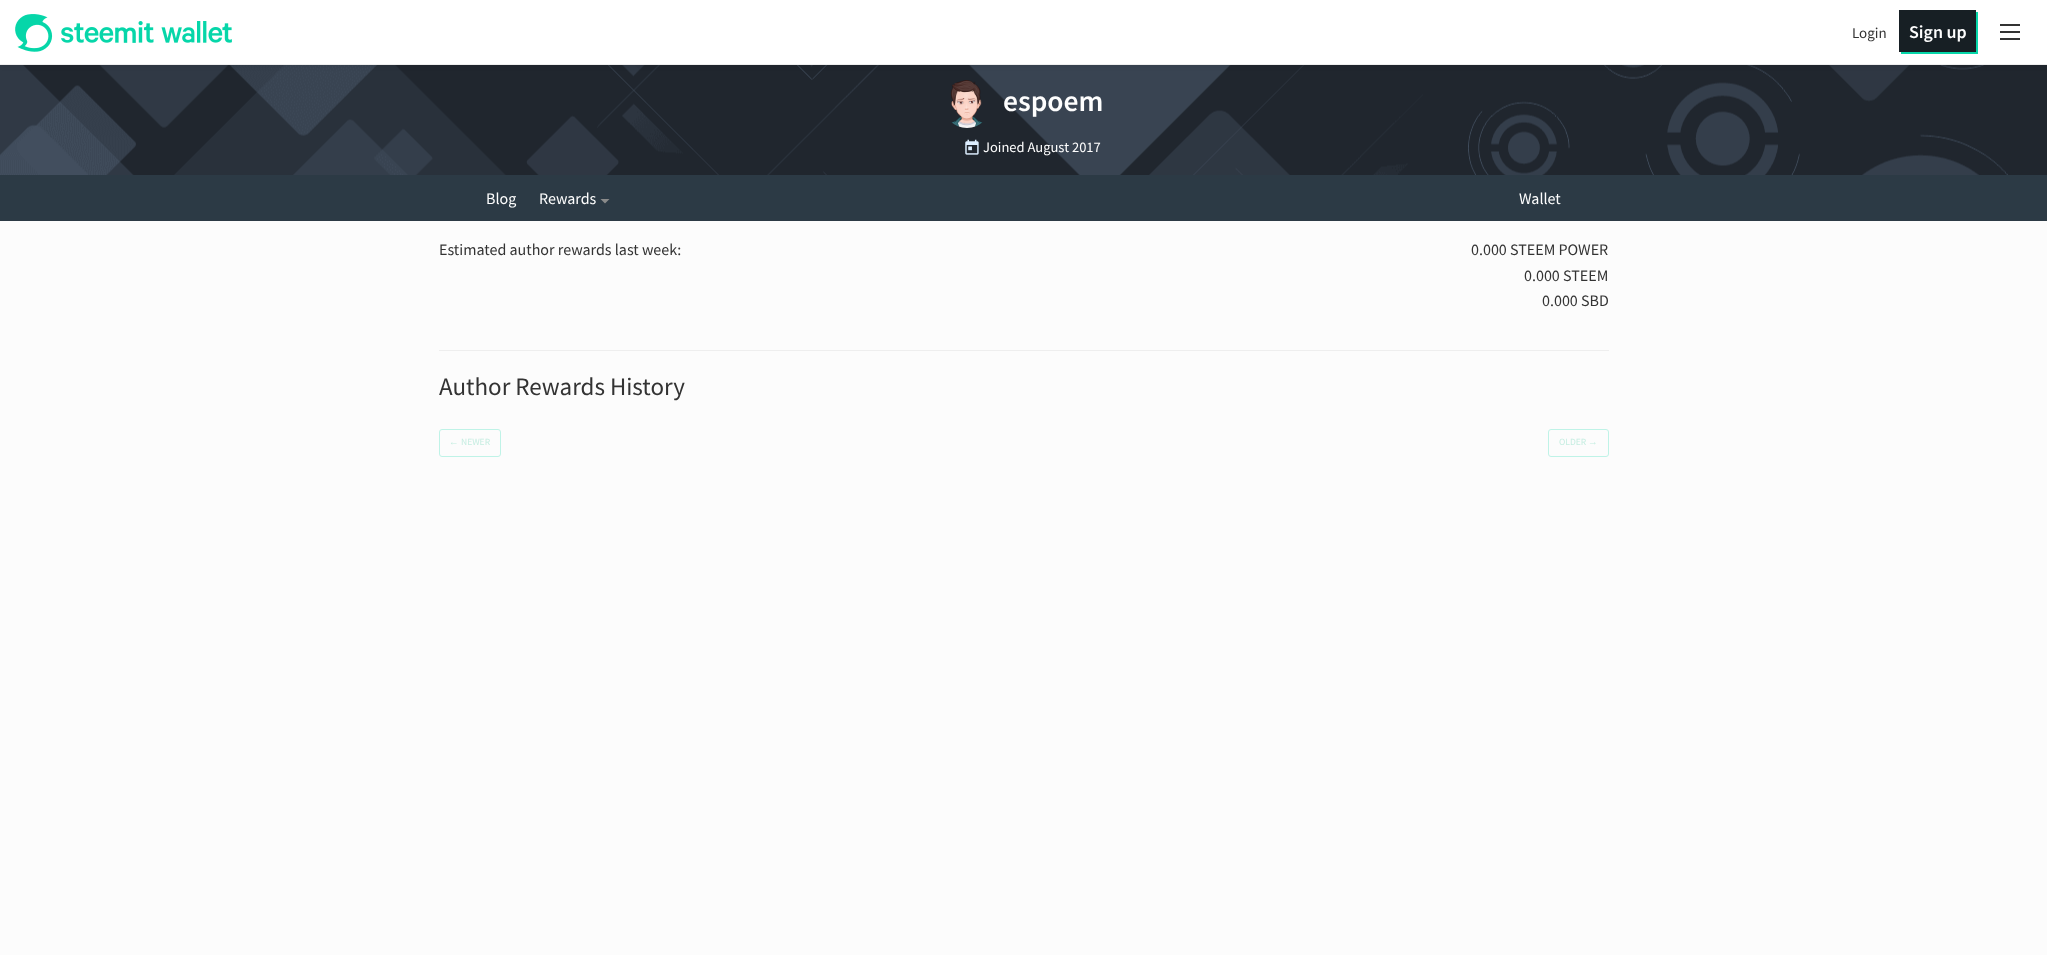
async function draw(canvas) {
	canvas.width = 2047;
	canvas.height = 955;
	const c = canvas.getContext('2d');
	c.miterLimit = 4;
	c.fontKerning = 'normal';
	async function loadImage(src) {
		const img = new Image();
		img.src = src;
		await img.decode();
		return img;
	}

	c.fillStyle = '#fcfcfc';
	c.fillRect(0, 0, 2047, 955);
	c.drawImage(await loadImage('img2.png'), 0, 65, 2047, 110);
	c.fillStyle = '#0000000d';
	c.filter = 'blur(2px)';
	c.beginPath();
	c.rect(0, 2, 2047, 65);
	c.fill();
	c.filter = 'none';
	c.fillStyle = '#fff';
	c.fillRect(0, 0, 2047, 64);
	c.fillStyle = '#eee';
	c.fillRect(0, 64, 2047, 1);
	c.drawImage(await loadImage('img1.png'), 15, 14, 217, 38);
	c.font = '15px Source Sans Pro';
	c.fillStyle = '#333';
	c.fillText('Login', 1852, 38);
	c.fillStyle = '#06d6a9';
	c.beginPath();
	c.moveTo(1901, 52);
	c.lineTo(1901, 54);
	c.lineTo(1978, 54);
	c.lineTo(1978, 12);
	c.lineTo(1976, 12);
	c.lineTo(1976, 52);
	c.closePath();
	c.fill();
	c.fillStyle = '#171f24';
	c.fillRect(1899, 10, 77, 42);
	c.font = '600 18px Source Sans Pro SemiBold';
	c.fillStyle = '#fefefe';
	c.fillText('Sign up', 1909, 38);
	for (const [x, y, w, h, color] of [
		[2000, 38, 20, 2, '#333'],
		[2000, 31, 20, 2, '#333'],
		[2000, 24, 20, 2, '#333'],
	]) {
		c.fillStyle = color;
		c.fillRect(x, y, w, h);
	}
	c.drawImage(await loadImage('img3.png'), 951, 80, 32, 48);
	c.font = '600 29.5px Source Sans Pro SemiBold';
	c.fillStyle = '#fefefe';
	c.fillText('espoem', 1003, 111);
	c.drawImage(await loadImage('img4.png'), 965, 139, 14, 16);
	c.font = '14.5px Source Sans Pro';
	c.fillText('Joined August 2017', 983, 152);
	c.fillStyle = '#2c3a45';
	c.fillRect(0, 175, 2047, 46);
	c.font = '16px Source Sans Pro';
	c.fillStyle = '#fefefe';
	c.fillText('Blog', 486, 204);
	c.fillText('Rewards', 539, 204);
	c.fillStyle = '#8a8a8a';
	c.beginPath();
	c.moveTo(600.5, 199);
	c.lineTo(605, 203.5);
	c.lineTo(609.5, 199);
	c.closePath();
	c.fill();
	c.fillStyle = '#fefefe';
	c.fillText('Wallet', 1519, 204);
	c.fillStyle = '#333';
	for (const [text, x, y] of [
		['Estimated author rewards last week:', 439, 255],
		['0.000 STEEM POWER', 1471, 255],
		['0.000 STEEM', 1524, 281],
		['0.000 SBD', 1542, 306],
	]) {
		c.fillText(text, x, y);
	}
	c.fillStyle = '#eee';
	c.fillRect(439, 350, 1170, 1);
	c.font = '25px Source Sans Pro';
	c.fillStyle = '#333';
	c.fillText('Author Rewards History', 439, 395);
	c.beginPath();
	c.roundRect(439.5, 429.5, 61, 27, 2.5);
	c.strokeStyle = '#bff3e7';
	c.stroke();
	c.font = '9.5px Liberation Sans';
	c.fillStyle = '#c5ede1';
	c.fillText('←', 449, 445);
	c.font = '9.5px Source Sans Pro';
	c.fillText('NEWER', 461, 445);
	c.beginPath();
	c.roundRect(1548.5, 429.5, 60, 27, 2.5);
	c.stroke();
	c.fillText('OLDER', 1559, 445);
	c.font = '9.5px Liberation Sans';
	c.fillText('→', 1588, 445);
}

draw(document.querySelector('canvas'));
